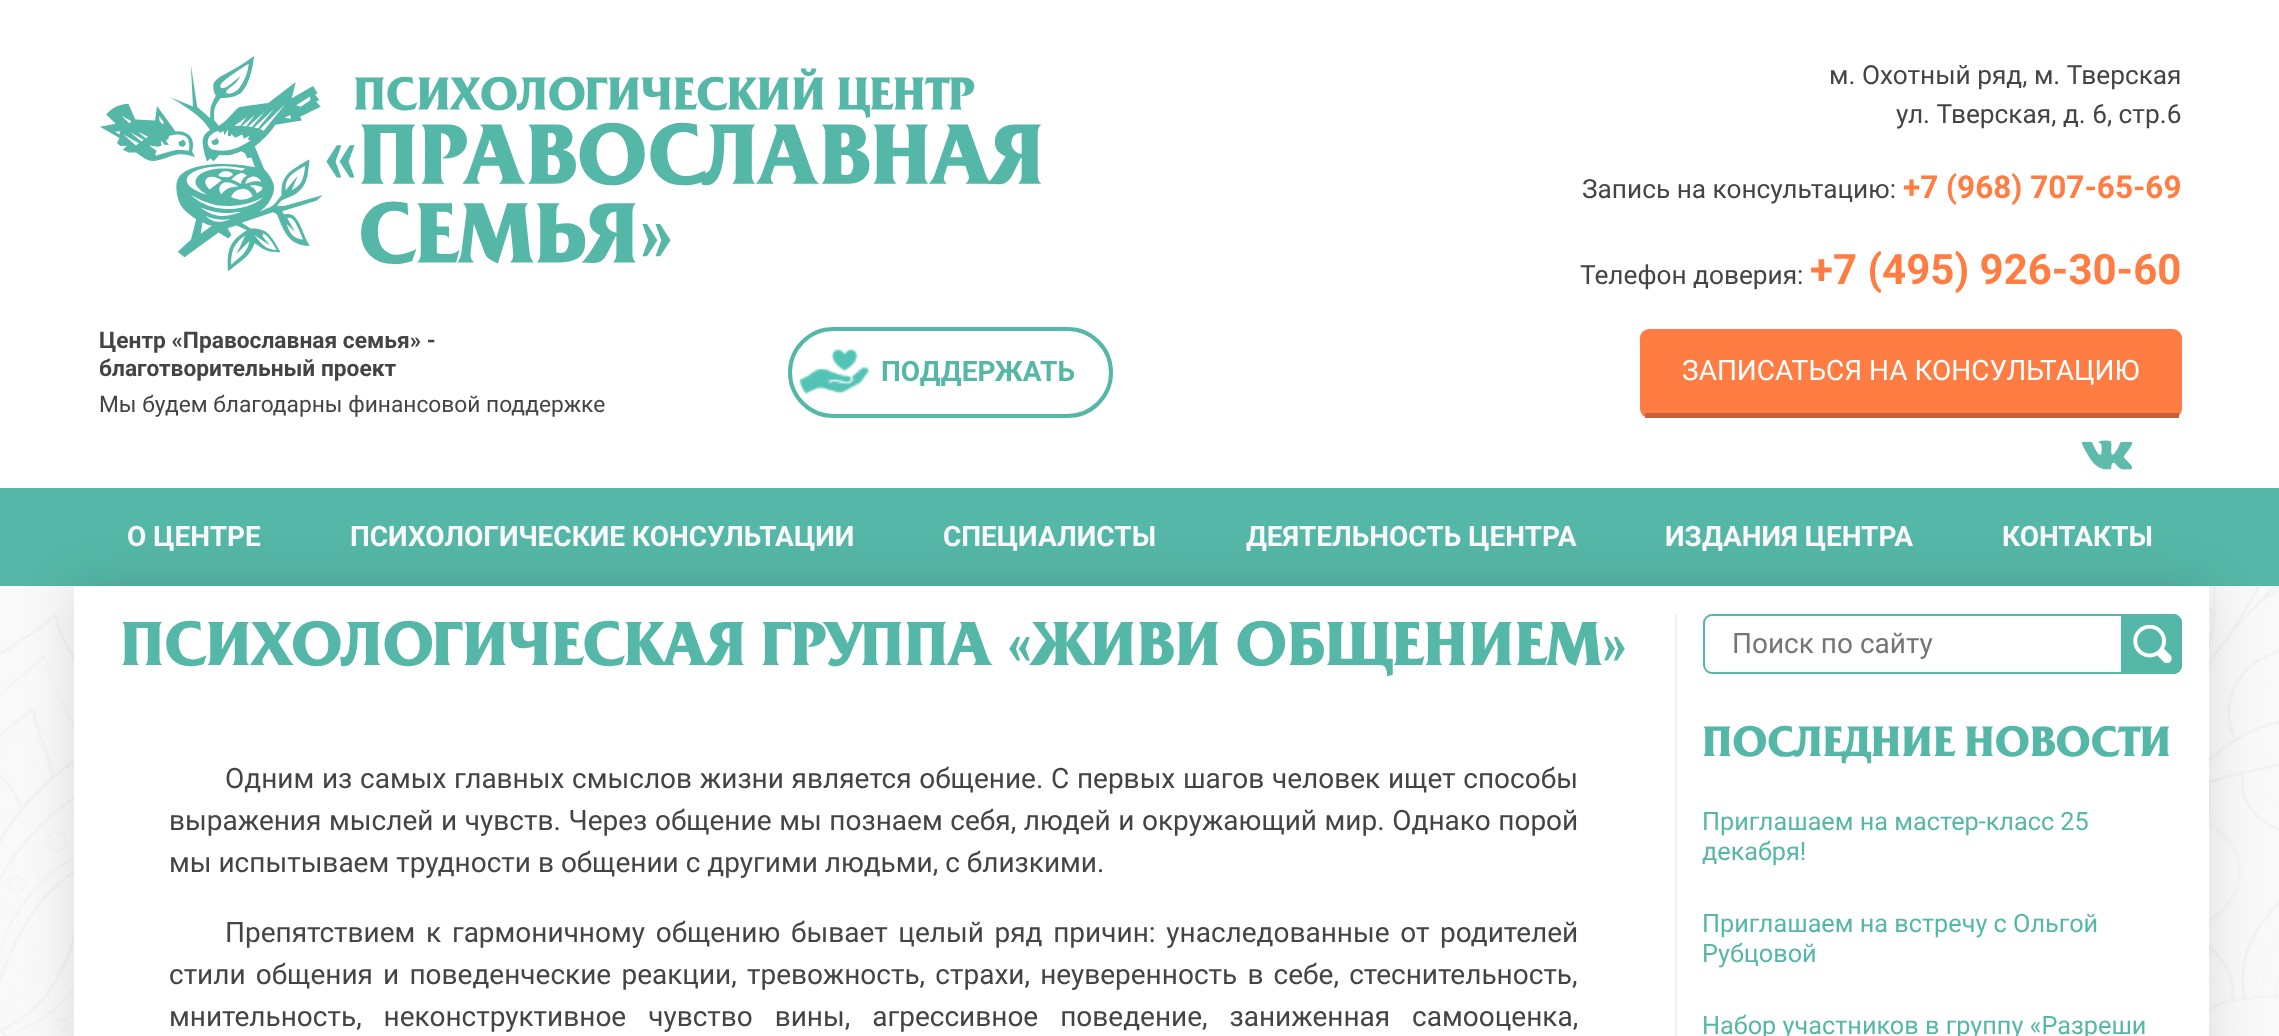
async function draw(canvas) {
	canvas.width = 2279;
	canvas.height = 1036;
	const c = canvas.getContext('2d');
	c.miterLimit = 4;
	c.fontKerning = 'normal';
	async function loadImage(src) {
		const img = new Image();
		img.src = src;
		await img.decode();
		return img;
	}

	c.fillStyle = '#fff';
	c.fillRect(0, 0, 2279, 1036);
	c.drawImage(await loadImage('img1.png'), 100, 56, 941, 215);
	c.font = 'bold 22.75px Roboto';
	c.fillStyle = '#444';
	c.fillText('Центр «Православная семья» -', 99, 348);
	c.fillText('благотворительный проект', 99, 376);
	c.font = '22.75px Roboto';
	c.fillText('Мы будем благодарны финансовой поддержке', 99, 412);
	c.drawImage(await loadImage('img2.png'), 799, 348, 71, 46);
	c.beginPath();
	c.roundRect(790, 329, 321, 87, 43.5);
	c.strokeStyle = '#55b7a7';
	c.lineWidth = 4;
	c.stroke();
	c.font = 'bold 28px Roboto';
	c.fillStyle = '#55b7a7';
	c.fillText('ПОДДЕРЖАТЬ', 881, 381);
	c.font = '26.25px Roboto';
	c.fillStyle = '#444';
	for (const [text, x, y] of [
		['м. Охотный ряд, м. Тверская', 1829, 84],
		['ул. Тверская, д. 6, стр.6', 1896, 123],
		['Запись на консультацию:', 1582, 198],
	]) {
		c.fillText(text, x, y);
	}
	c.font = 'bold 31.5px Roboto';
	c.fillStyle = '#ff7d43';
	c.fillText('+7 (968) 707-65-69', 1903, 198);
	c.font = '26.25px Roboto';
	c.fillStyle = '#444';
	c.fillText('Телефон доверия:', 1580, 284);
	c.font = 'bold 42px Roboto';
	c.fillStyle = '#ff7d43';
	c.fillText('+7 (495) 926-30-60', 1810, 284);
	c.beginPath();
	c.roundRect(1640, 329, 542, 89, 9);
	c.fill();
	c.fillStyle = '#c5613b';
	c.fillRect(1645, 413, 534, 5);
	c.font = '28px Roboto';
	c.fillStyle = '#fff';
	c.fillText('ЗАПИСАТЬСЯ НА КОНСУЛЬТАЦИЮ', 1682, 380);
	c.drawImage(await loadImage('img3.png'), 2081, 440, 52, 30);
	c.fillStyle = '#55b7a7';
	c.fillRect(0, 488, 2279, 98);
	c.drawImage(await loadImage('img4.png'), 0, 586, 2279, 450);
	c.fillStyle = '#0000001f';
	c.filter = 'blur(25.5px)';
	c.beginPath();
	c.rect(74, 586, 2135, 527);
	c.fill();
	c.filter = 'none';
	c.font = 'bold 28px Roboto';
	c.fillStyle = '#f9f8f8';
	for (const [text, x, y] of [
		['О ЦЕНТРЕ', 127, 546],
		['ПСИХОЛОГИЧЕСКИЕ КОНСУЛЬТАЦИИ', 350, 546],
		['СПЕЦИАЛИСТЫ', 943, 546],
		['ДЕЯТЕЛЬНОСТЬ ЦЕНТРА', 1246, 546],
		['ИЗДАНИЯ ЦЕНТРА', 1665, 546],
		['КОНТАКТЫ', 2002, 546],
	]) {
		c.fillText(text, x, y);
	}
	c.fillStyle = '#fff';
	c.fillRect(74, 586, 2135, 450);
	c.font = 'bold 61.6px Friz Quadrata';
	c.fillStyle = '#55b7a7';
	c.fillText('ПСИХОЛОГИЧЕСКАЯ ГРУППА «ЖИВИ ОБЩЕНИЕМ»', 120, 665);
	c.wordSpacing = '0.75px';
	c.font = '28px Roboto';
	c.fillStyle = '#444';
	c.fillText('Одним из самых главных смыслов жизни является общение. С первых шагов человек ищет способы', 225, 788);
	c.wordSpacing = '0.7px';
	c.fillText('выражения мыслей и чувств. Через общение мы познаем себя, людей и окружающий мир. Однако порой', 169, 830);
	c.wordSpacing = '0px';
	c.fillText('мы испытываем трудности в общении с другими людьми, с близкими.', 169, 872);
	c.wordSpacing = '3.75px';
	c.fillText('Препятствием к гармоничному общению бывает целый ряд причин: унаследованные от родителей', 225, 942);
	c.wordSpacing = '3.25px';
	c.fillText('стили общения и поведенческие реакции, тревожность, страхи, неуверенность в себе, стеснительность,', 169, 984);
	c.wordSpacing = '15px';
	c.fillText('мнительность, неконструктивное чувство вины, агрессивное поведение, заниженная самооценка,', 169, 1026);
	c.fillStyle = '#f1f1f0';
	c.fillRect(1675, 614, 2, 422);
	c.fillStyle = '#55b7a7';
	c.beginPath();
	c.roundRect(2123, 614, 59, 60, [0, 9, 9, 0]);
	c.fill();
	c.beginPath();
	c.moveTo(2123, 614);
	c.lineTo(2174, 614);
	c.bezierCurveTo(2178, 614, 2182, 618, 2182, 623);
	c.lineTo(2182, 665);
	c.bezierCurveTo(2182, 670, 2178, 674, 2174, 674);
	c.lineTo(2123, 674);
	c.closePath();
	c.moveTo(2123, 616);
	c.lineTo(2174, 616);
	c.bezierCurveTo(2177, 616, 2180, 619, 2180, 623);
	c.lineTo(2180, 665);
	c.bezierCurveTo(2180, 669, 2177, 672, 2174, 672);
	c.lineTo(2123, 672);
	c.closePath();
	c.fill('evenodd');
	c.beginPath();
	c.roundRect(1704, 615, 418, 58, [8, 0, 0, 8]);
	c.lineWidth = 2;
	c.stroke();
	c.wordSpacing = '0px';
	c.fillStyle = '#757575';
	c.fillText('Поиск по сайту', 1732, 653);
	c.drawImage(await loadImage('img5.png'), 2133, 625, 39, 38);
	c.font = 'bold 42px Friz Quadrata';
	c.fillStyle = '#55b7a7';
	c.fillText('ПОСЛЕДНИЕ НОВОСТИ', 1702, 756);
	c.font = '25.25px Roboto';
	for (const [text, x, y] of [
		['Приглашаем на мастер-класс 25', 1702, 830],
		['декабря!', 1702, 860],
		['Приглашаем на встречу с Ольгой', 1702, 932],
		['Рубцовой', 1702, 962],
		['Набор участников в группу «Разреши', 1702, 1034],
	]) {
		c.fillText(text, x, y);
	}
}

draw(document.querySelector('canvas'));
